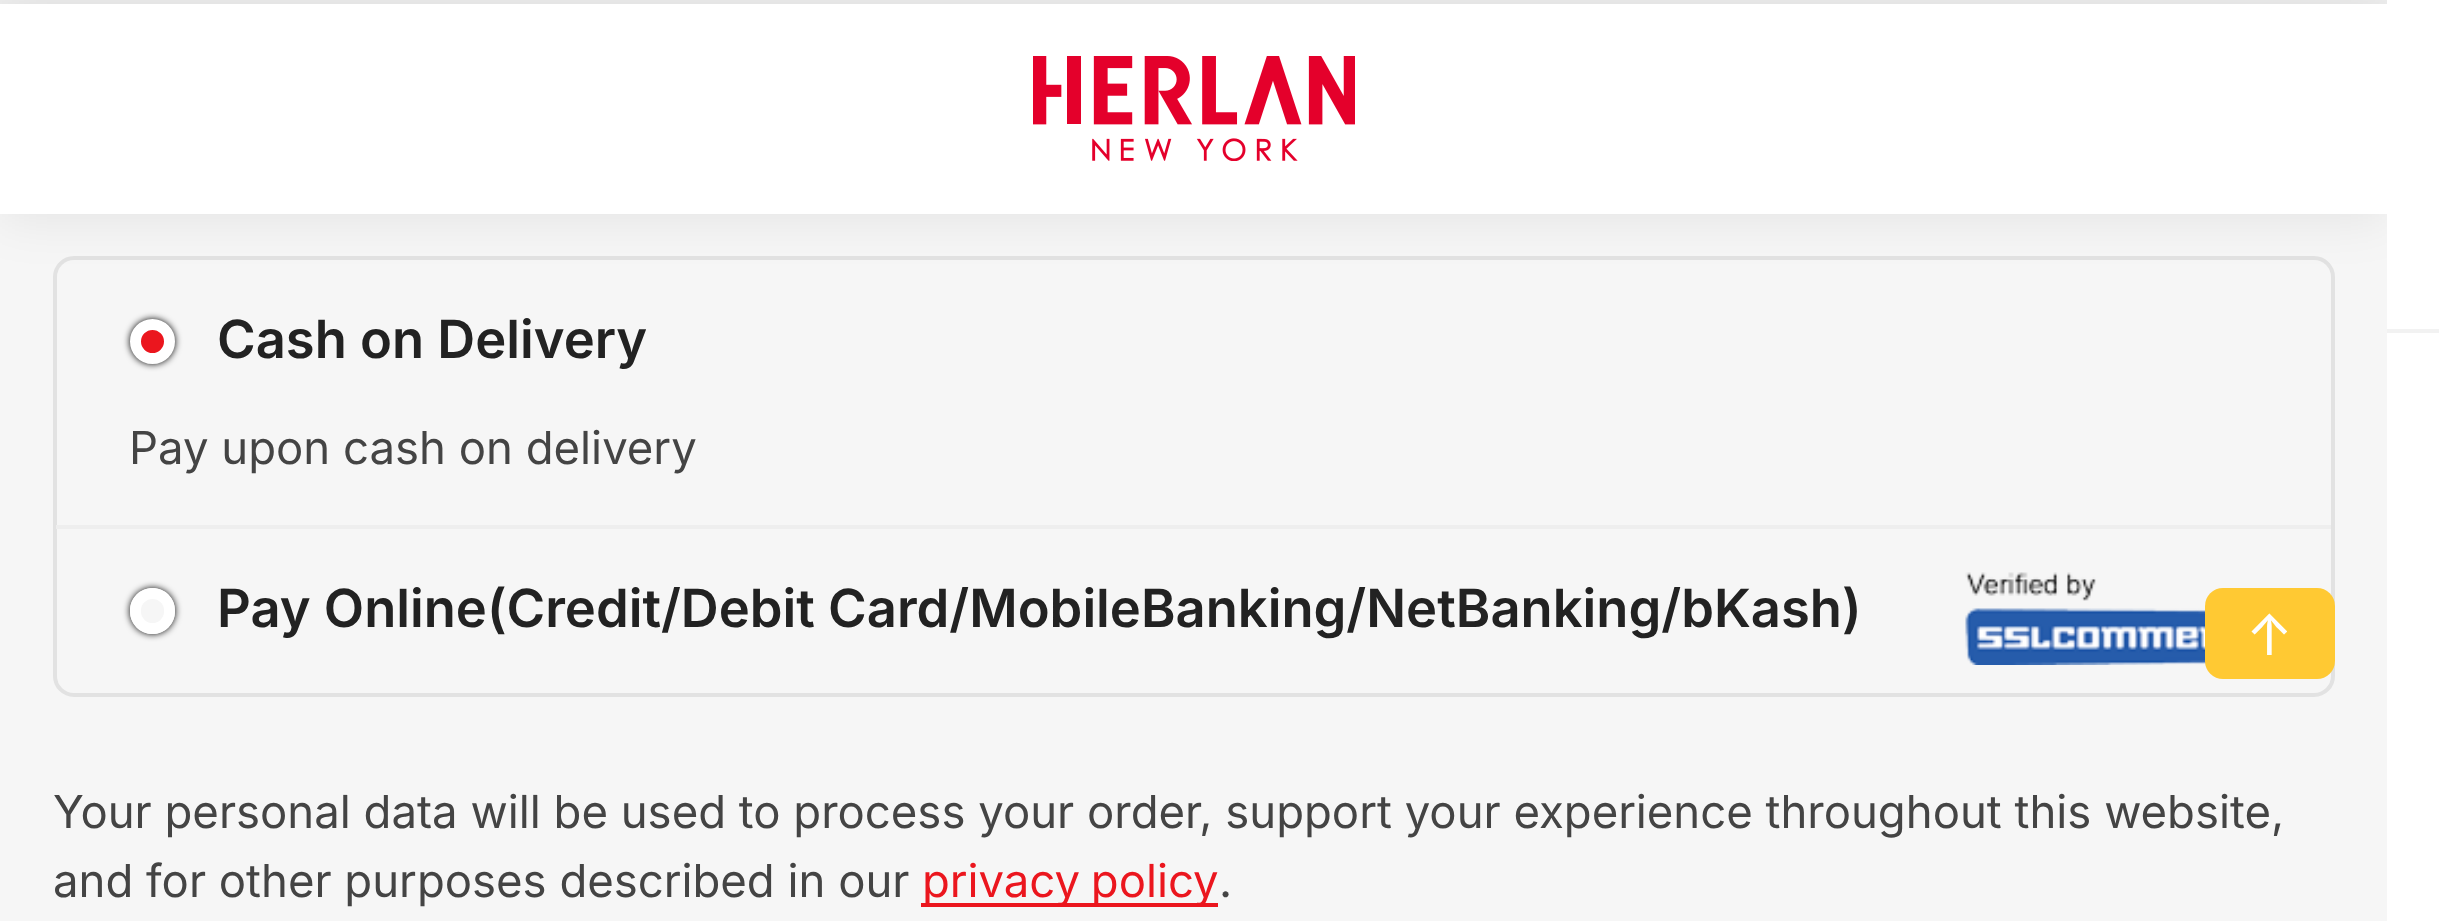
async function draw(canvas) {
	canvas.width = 2439;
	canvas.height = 921;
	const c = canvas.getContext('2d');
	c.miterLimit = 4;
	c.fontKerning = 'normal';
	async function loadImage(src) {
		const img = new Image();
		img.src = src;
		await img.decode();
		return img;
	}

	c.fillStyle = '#f6f6f6';
	c.fillRect(0, 0, 2439, 921);
	c.fillStyle = '#fff';
	c.fillRect(0, 4, 2387, 210);
	c.fillStyle = '#eee';
	c.fillRect(0, 0, 2387, 4);
	c.beginPath();
	c.roundRect(55, 258, 2278, 437, 19);
	c.strokeStyle = '#e2e2e2';
	c.lineWidth = 4;
	c.stroke();
	c.save();
	c.beginPath();
	c.moveTo(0, 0);
	c.lineTo(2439, 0);
	c.lineTo(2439, 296);
	c.lineTo(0, 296);
	c.closePath();
	c.moveTo(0, 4);
	c.lineTo(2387, 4);
	c.lineTo(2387, 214);
	c.lineTo(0, 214);
	c.closePath();
	c.clip('evenodd');
	c.fillStyle = '#00000014';
	c.filter = 'blur(26px)';
	c.beginPath();
	c.rect(0, 7, 2387, 210);
	c.fill();
	c.filter = 'none';
	c.restore();
	c.drawImage(await loadImage('img1.png'), 1033, 56, 322, 105);
	c.fillRect(56, 525, 2275, 4);
	c.fillStyle = '#000';
	c.filter = 'blur(3.5px)';
	c.beginPath();
	c.roundRect(130, 319, 45, 45, 22.5);
	c.fill();
	c.filter = 'none';
	c.fillStyle = '#eb161e';
	c.beginPath();
	c.arc(152.5, 341.5, 17, 0, 2 * Math.PI);
	c.fill();
	c.strokeStyle = '#fff';
	c.lineWidth = 11;
	c.stroke();
	c.font = '600 52.5px Inter';
	c.fillStyle = '#222';
	c.fillText('Cash on Delivery', 217, 358);
	c.font = '45.5px Inter';
	c.fillStyle = '#444';
	c.fillText('Pay upon cash on delivery', 129, 464);
	c.save();
	c.beginPath();
	c.moveTo(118, 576);
	c.lineTo(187, 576);
	c.lineTo(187, 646);
	c.lineTo(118, 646);
	c.closePath();
	c.moveTo(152.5, 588);
	c.bezierCurveTo(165, 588, 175, 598, 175, 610.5);
	c.lineTo(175, 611.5);
	c.bezierCurveTo(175, 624, 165, 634, 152.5, 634);
	c.bezierCurveTo(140, 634, 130, 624, 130, 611.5);
	c.lineTo(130, 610.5);
	c.bezierCurveTo(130, 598, 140, 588, 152.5, 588);
	c.closePath();
	c.clip('evenodd');
	c.fillStyle = '#000';
	c.filter = 'blur(3.5px)';
	c.beginPath();
	c.roundRect(130, 588, 45, 46, 22.5);
	c.fill();
	c.filter = 'none';
	c.restore();
	c.beginPath();
	c.roundRect(135.5, 593.5, 34, 35, 17);
	c.stroke();
	c.font = '600 52.5px Inter';
	c.fillStyle = '#222';
	c.fillText('Pay Online(Credit/Debit Card/MobileBanking/NetBanking/bKash)', 217, 627);
	c.drawImage(await loadImage('img2.png'), 1965, 572, 241, 93);
	c.font = '45.5px Inter';
	c.fillStyle = '#444';
	c.fillText('Your personal data will be used to process your order, support your experience throughout this website,', 53, 828);
	c.fillText('and for other purposes described in our', 53, 897);
	c.fillStyle = '#eb161e';
	c.fillRect(921, 903, 297, 4);
	c.wordSpacing = '-2px';
	c.fillText('privacy policy', 922, 897);
	c.wordSpacing = '0px';
	c.fillStyle = '#444';
	c.fillText('.', 1219, 897);
	c.fillStyle = '#fff';
	c.fillRect(2387, 0, 52, 921);
	c.fillStyle = '#f2f2f2';
	c.fillRect(2387, 329, 52, 4);
	c.fillStyle = '#ffc933';
	c.beginPath();
	c.roundRect(2205, 588, 130, 91, 18);
	c.fill();
	c.font = '56px Inter';
	c.fillStyle = '#fff';
	c.fillText('↑', 2246, 655);
}

draw(document.querySelector('canvas'));
